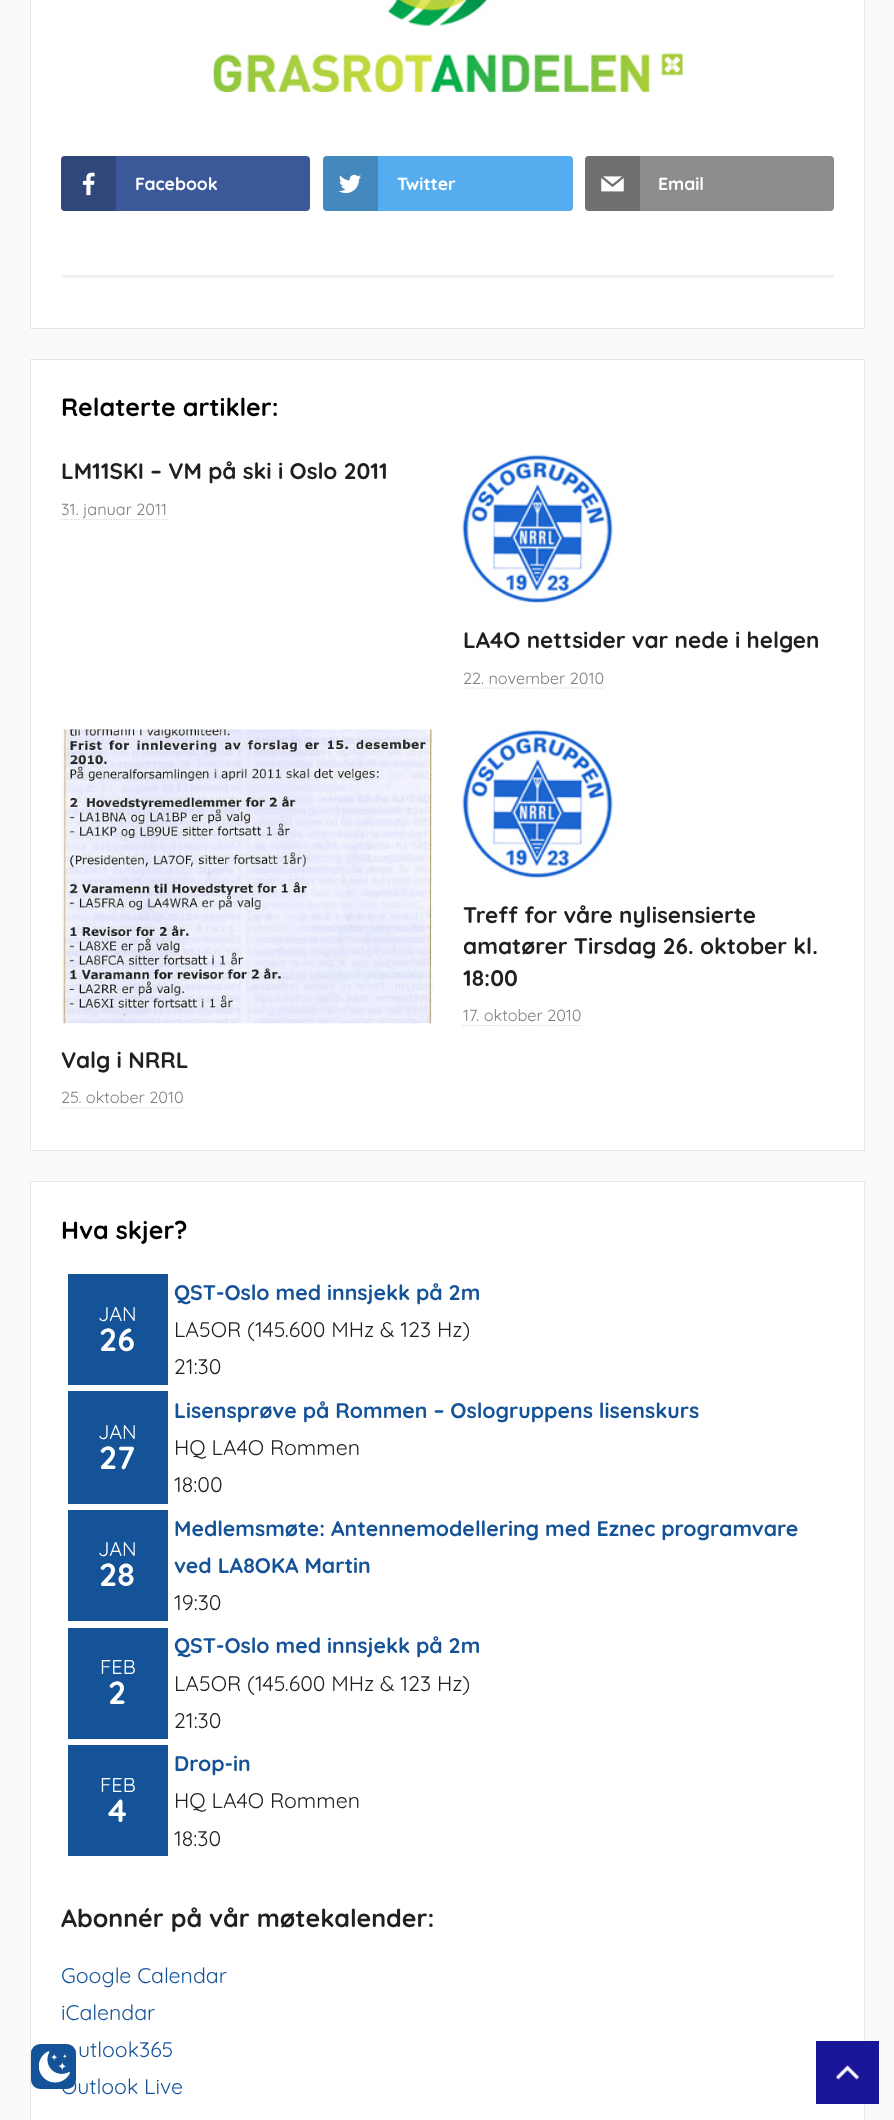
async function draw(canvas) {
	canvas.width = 894;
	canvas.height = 2120;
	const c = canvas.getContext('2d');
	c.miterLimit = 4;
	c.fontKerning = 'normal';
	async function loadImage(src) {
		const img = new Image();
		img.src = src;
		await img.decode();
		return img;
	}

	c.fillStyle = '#fafafa';
	c.fillRect(0, 0, 894, 2120);
	c.fillStyle = '#fff';
	c.beginPath();
	c.rect(30.5, 1181.5, 834, 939);
	c.fill();
	c.strokeStyle = '#e6e6e6';
	c.stroke();
	c.fillStyle = '#155398';
	c.beginPath();
	c.roundRect(31, 2044, 45, 45, 9);
	c.fill();
	c.font = '21.25px Quicksand';
	c.fillText('Outlook Live', 61, 2094);
	c.drawImage(await loadImage('img1.png'), 39, 2051, 31, 32);
	c.fillStyle = '#fff';
	c.beginPath();
	c.rect(30.5, -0.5, 834, 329);
	c.fill();
	c.stroke();
	c.drawImage(await loadImage('img2.png'), 213, 0, 470, 92);
	c.fillStyle = '#3b5998';
	c.beginPath();
	c.roundRect(61, 156, 249, 55, 4);
	c.fill();
	c.fillStyle = '#00000033';
	c.beginPath();
	c.roundRect(61, 156, 55, 55, [4, 0, 0, 4]);
	c.fill();
	c.drawImage(await loadImage('img3.png'), 82, 172, 13, 24);
	c.font = 'bold 17.5px Quicksand';
	c.fillStyle = '#fff';
	c.fillText('Facebook', 135, 190);
	c.fillStyle = '#55acee';
	c.beginPath();
	c.roundRect(323, 156, 250, 55, 4);
	c.fill();
	c.fillStyle = '#00000033';
	c.beginPath();
	c.roundRect(323, 156, 55, 55, [4, 0, 0, 4]);
	c.fill();
	c.drawImage(await loadImage('img4.png'), 339, 174, 22, 20);
	c.fillStyle = '#fff';
	c.fillText('Twitter', 397, 190);
	c.fillStyle = '#8c8c8c';
	c.beginPath();
	c.roundRect(585, 156, 249, 55, 4);
	c.fill();
	c.fillStyle = '#00000033';
	c.beginPath();
	c.roundRect(585, 156, 55, 55, [4, 0, 0, 4]);
	c.fill();
	c.drawImage(await loadImage('img5.png'), 601, 176, 23, 16);
	c.fillStyle = '#fff';
	c.fillText('Email', 658, 190);
	c.fillStyle = '#f2f2f2';
	c.fillRect(61, 275, 773, 3);
	c.fillStyle = '#fff';
	c.beginPath();
	c.rect(30.5, 359.5, 834, 791);
	c.fill();
	c.stroke();
	c.font = 'bold 25px Quicksand';
	c.fillStyle = '#000';
	c.fillText('Relaterte artikler:', 61, 416);
	c.font = 'bold 22.5px Quicksand';
	c.fillStyle = '#202020';
	c.fillText('LM11SKI – VM på ski i Oslo 2011', 61, 479);
	c.beginPath();
	c.moveTo(61, 519.5);
	c.lineTo(167.5, 519.5);
	c.strokeStyle = '#d9d9d9';
	c.lineWidth = 1.2;
	c.setLineDash([1.25, 1.25]);
	c.stroke();
	c.font = '16.25px Quicksand';
	c.fillStyle = '#7f7f7f';
	c.fillText('31. januar 2011', 61, 515);
	c.drawImage(await loadImage('img6.png'), 462, 454, 151, 150);
	c.font = 'bold 22.5px Quicksand';
	c.fillStyle = '#202020';
	c.fillText('LA4O nettsider var nede i helgen', 463, 648);
	c.font = '16.25px Quicksand';
	c.fillStyle = '#7f7f7f';
	c.fillText('22. november 2010', 463, 684);
	c.beginPath();
	c.moveTo(462.5, 688);
	c.lineTo(604, 688);
	c.stroke();
	c.drawImage(await loadImage('img7.png'), 462, 729, 151, 150);
	c.font = 'bold 22.5px Quicksand';
	c.fillStyle = '#202020';
	for (const [text, x, y] of [
		['Treff for våre nylisensierte', 463, 923],
		['amatører Tirsdag 26. oktober kl.', 463, 954],
		['18:00', 463, 986],
	]) {
		c.fillText(text, x, y);
	}
	c.font = '16.25px Quicksand';
	c.fillStyle = '#7f7f7f';
	c.fillText('17. oktober 2010', 463, 1021);
	c.beginPath();
	c.moveTo(462.5, 1025.5);
	c.lineTo(581, 1025.5);
	c.stroke();
	c.drawImage(await loadImage('img8.png'), 61, 729, 372, 295);
	c.font = 'bold 22.5px Quicksand';
	c.fillStyle = '#202020';
	c.fillText('Valg i NRRL', 61, 1068);
	c.font = '16.25px Quicksand';
	c.fillStyle = '#7f7f7f';
	c.fillText('25. oktober 2010', 61, 1103);
	c.beginPath();
	c.moveTo(61, 1108);
	c.lineTo(184, 1108);
	c.stroke();
	c.font = 'bold 25px Quicksand';
	c.fillStyle = '#000';
	c.fillText('Hva skjer?', 61, 1239);
	c.fillStyle = '#155398';
	c.fillRect(68, 1274, 100, 111);
	c.font = '20px Quicksand';
	c.fillStyle = '#fff';
	c.fillText('JAN', 98, 1321);
	c.font = 'bold 32px Quicksand';
	c.fillText('26', 99, 1351);
	c.font = 'bold 21.25px Quicksand';
	c.fillStyle = '#155398';
	c.fillText('QST-Oslo med innsjekk på 2m', 174, 1300);
	c.font = '21.25px Quicksand';
	c.fillStyle = '#202020';
	c.fillText('LA5OR (145.600 MHz & 123 Hz)', 174, 1337);
	c.fillText('21:30', 174, 1374);
	c.fillStyle = '#155398';
	c.fillRect(68, 1391, 100, 113);
	c.font = '20px Quicksand';
	c.fillStyle = '#fff';
	c.fillText('JAN', 98, 1439);
	c.font = 'bold 32px Quicksand';
	c.fillText('27', 99, 1469);
	c.font = 'bold 21.25px Quicksand';
	c.fillStyle = '#155398';
	c.fillText('Lisensprøve på Rommen – Oslogruppens lisenskurs', 174, 1418);
	c.font = '21.25px Quicksand';
	c.fillStyle = '#202020';
	c.fillText('HQ LA4O Rommen', 174, 1455);
	c.fillText('18:00', 174, 1492);
	c.fillStyle = '#155398';
	c.fillRect(68, 1510, 100, 111);
	c.font = '20px Quicksand';
	c.fillStyle = '#fff';
	c.fillText('JAN', 98, 1556);
	c.font = 'bold 32px Quicksand';
	c.fillText('28', 99, 1586);
	c.font = 'bold 21.25px Quicksand';
	c.fillStyle = '#155398';
	c.fillText('Medlemsmøte: Antennemodellering med Eznec programvare', 174, 1536);
	c.fillText('ved LA8OKA Martin', 174, 1573);
	c.font = '21.25px Quicksand';
	c.fillStyle = '#202020';
	c.fillText('19:30', 174, 1610);
	c.fillStyle = '#155398';
	c.fillRect(68, 1628, 100, 111);
	c.font = '20px Quicksand';
	c.fillStyle = '#fff';
	c.fillText('FEB', 100, 1674);
	c.font = 'bold 32px Quicksand';
	c.fillText('2', 108, 1704);
	c.font = 'bold 21.25px Quicksand';
	c.fillStyle = '#155398';
	c.fillText('QST-Oslo med innsjekk på 2m', 174, 1653);
	c.font = '21.25px Quicksand';
	c.fillStyle = '#202020';
	c.fillText('LA5OR (145.600 MHz & 123 Hz)', 174, 1691);
	c.fillText('21:30', 174, 1728);
	c.fillStyle = '#155398';
	c.fillRect(68, 1745, 100, 111);
	c.font = '20px Quicksand';
	c.fillStyle = '#fff';
	c.fillText('FEB', 100, 1792);
	c.font = 'bold 32px Quicksand';
	c.fillText('4', 108, 1822);
	c.font = 'bold 21.25px Quicksand';
	c.fillStyle = '#155398';
	c.fillText('Drop-in', 174, 1771);
	c.font = '21.25px Quicksand';
	c.fillStyle = '#202020';
	c.fillText('HQ LA4O Rommen', 174, 1808);
	c.fillText('18:30', 174, 1846);
	c.font = 'bold 25px Quicksand';
	c.fillText('Abonnér på vår møtekalender:', 61, 1927);
	c.font = '21.25px Quicksand';
	c.fillStyle = '#155398';
	for (const [text, x, y] of [
		['Google Calendar', 61, 1983],
		['iCalendar', 61, 2020],
		['utlook365', 78, 2057],
	]) {
		c.fillText(text, x, y);
	}
	c.fillStyle = '#181598';
	c.fillRect(816, 2041, 63, 63);
	c.drawImage(await loadImage('img9.png'), 835, 2065, 24, 15);
}

draw(document.querySelector('canvas'));
